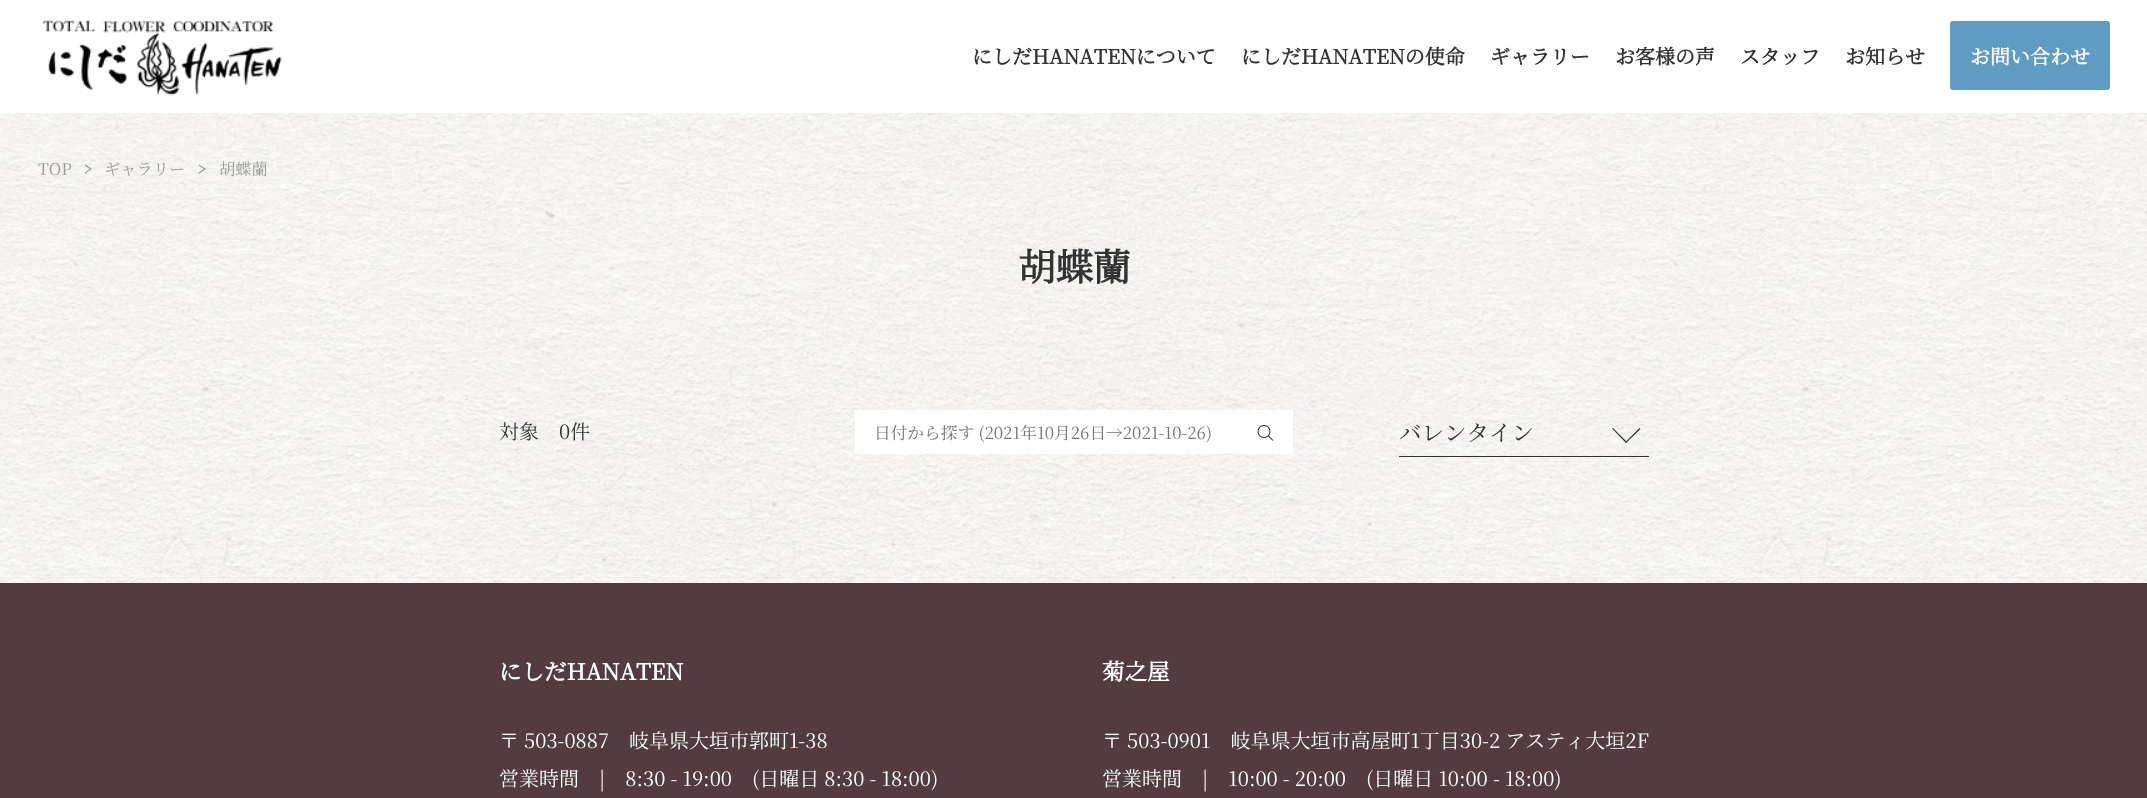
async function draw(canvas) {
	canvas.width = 2147;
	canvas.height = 798;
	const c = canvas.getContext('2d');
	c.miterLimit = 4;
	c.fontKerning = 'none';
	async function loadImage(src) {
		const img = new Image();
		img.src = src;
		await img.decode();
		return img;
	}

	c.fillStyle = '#fff';
	c.fillRect(0, 0, 2147, 798);
	c.drawImage(await loadImage('img1.png'), 0, 113, 2147, 470);
	c.drawImage(await loadImage('img2.png'), 42, 20, 240, 76);
	c.font = 'bold 20px Noto Serif JP';
	c.fillStyle = '#333';
	for (const [text, x, y] of [
		['にしだHANATENについて', 972, 64],
		['にしだHANATENの使命', 1241, 64],
		['ギャラリー', 1490, 64],
		['お客様の声', 1615, 64],
		['スタッフ', 1740, 64],
		['お知らせ', 1845, 64],
	]) {
		c.fillText(text, x, y);
	}
	c.fillStyle = '#609bc1';
	c.beginPath();
	c.roundRect(1950.5, 21.5, 159, 68, 2);
	c.fill();
	c.strokeStyle = '#609bc1';
	c.stroke();
	c.fillStyle = '#fff';
	c.fillText('お問い合わせ', 1970, 64);
	c.font = '200 16.25px Noto Serif JP';
	c.fillStyle = '#999';
	c.fillText('TOP', 38, 175);
	c.beginPath();
	c.moveTo(85, 165);
	c.lineTo(91, 169);
	c.lineTo(85, 173);
	c.strokeStyle = '#999';
	c.lineWidth = 1.2;
	c.stroke();
	c.fillText('ギャラリー', 104, 175);
	c.beginPath();
	c.moveTo(199, 165);
	c.lineTo(205, 169);
	c.lineTo(199, 173);
	c.stroke();
	c.fillText('胡蝶蘭', 219, 175);
	c.font = 'bold 37.5px Noto Serif JP';
	c.fillStyle = '#333';
	c.fillText('胡蝶蘭', 1018, 281);
	c.font = '200 20px Noto Serif JP';
	c.fillText('対象　0件', 499, 439);
	c.fillStyle = '#fff';
	c.fillRect(855, 410, 438, 44);
	c.font = '200 16.7px Noto Serif JP';
	c.fillStyle = '#757575';
	c.fillText('日付から探す (2021年10月26日→2021-10-26)', 874, 439);
	c.drawImage(await loadImage('img3.png'), 1257, 425, 17, 16);
	c.fillStyle = '#333';
	c.fillRect(1399, 456, 250, 1);
	c.font = '200 22.5px Noto Serif JP';
	c.fillText('バレンタイン', 1399, 441);
	c.beginPath();
	c.moveTo(1639.5, 428);
	c.lineTo(1640.5, 429);
	c.lineTo(1626, 443);
	c.lineTo(1625.5, 442);
	c.closePath();
	c.fill();
	c.beginPath();
	c.moveTo(1613, 428);
	c.lineTo(1627, 442);
	c.lineTo(1626, 443);
	c.lineTo(1612, 428.5);
	c.closePath();
	c.fill();
	c.fillStyle = '#523c41';
	c.fillRect(0, 583, 2147, 215);
	c.font = 'bold 22.5px Noto Serif JP';
	c.fillStyle = '#fff';
	c.fillText('にしだHANATEN', 499, 680);
	c.font = '200 20px Noto Serif JP';
	c.fillText('〒 503-0887　岐阜県大垣市郭町1-38', 499, 748);
	c.fillText('営業時間　|　8:30 - 19:00　(日曜日 8:30 - 18:00)', 499, 786);
	c.font = 'bold 22.5px Noto Serif JP';
	c.fillText('菊之屋', 1102, 680);
	c.font = '200 20px Noto Serif JP';
	c.fillText('〒 503-0901　岐阜県大垣市高屋町1丁目30-2 アスティ大垣2F', 1102, 748);
	c.fillText('営業時間　|　10:00 - 20:00　(日曜日 10:00 - 18:00)', 1102, 786);
}

draw(document.querySelector('canvas'));
